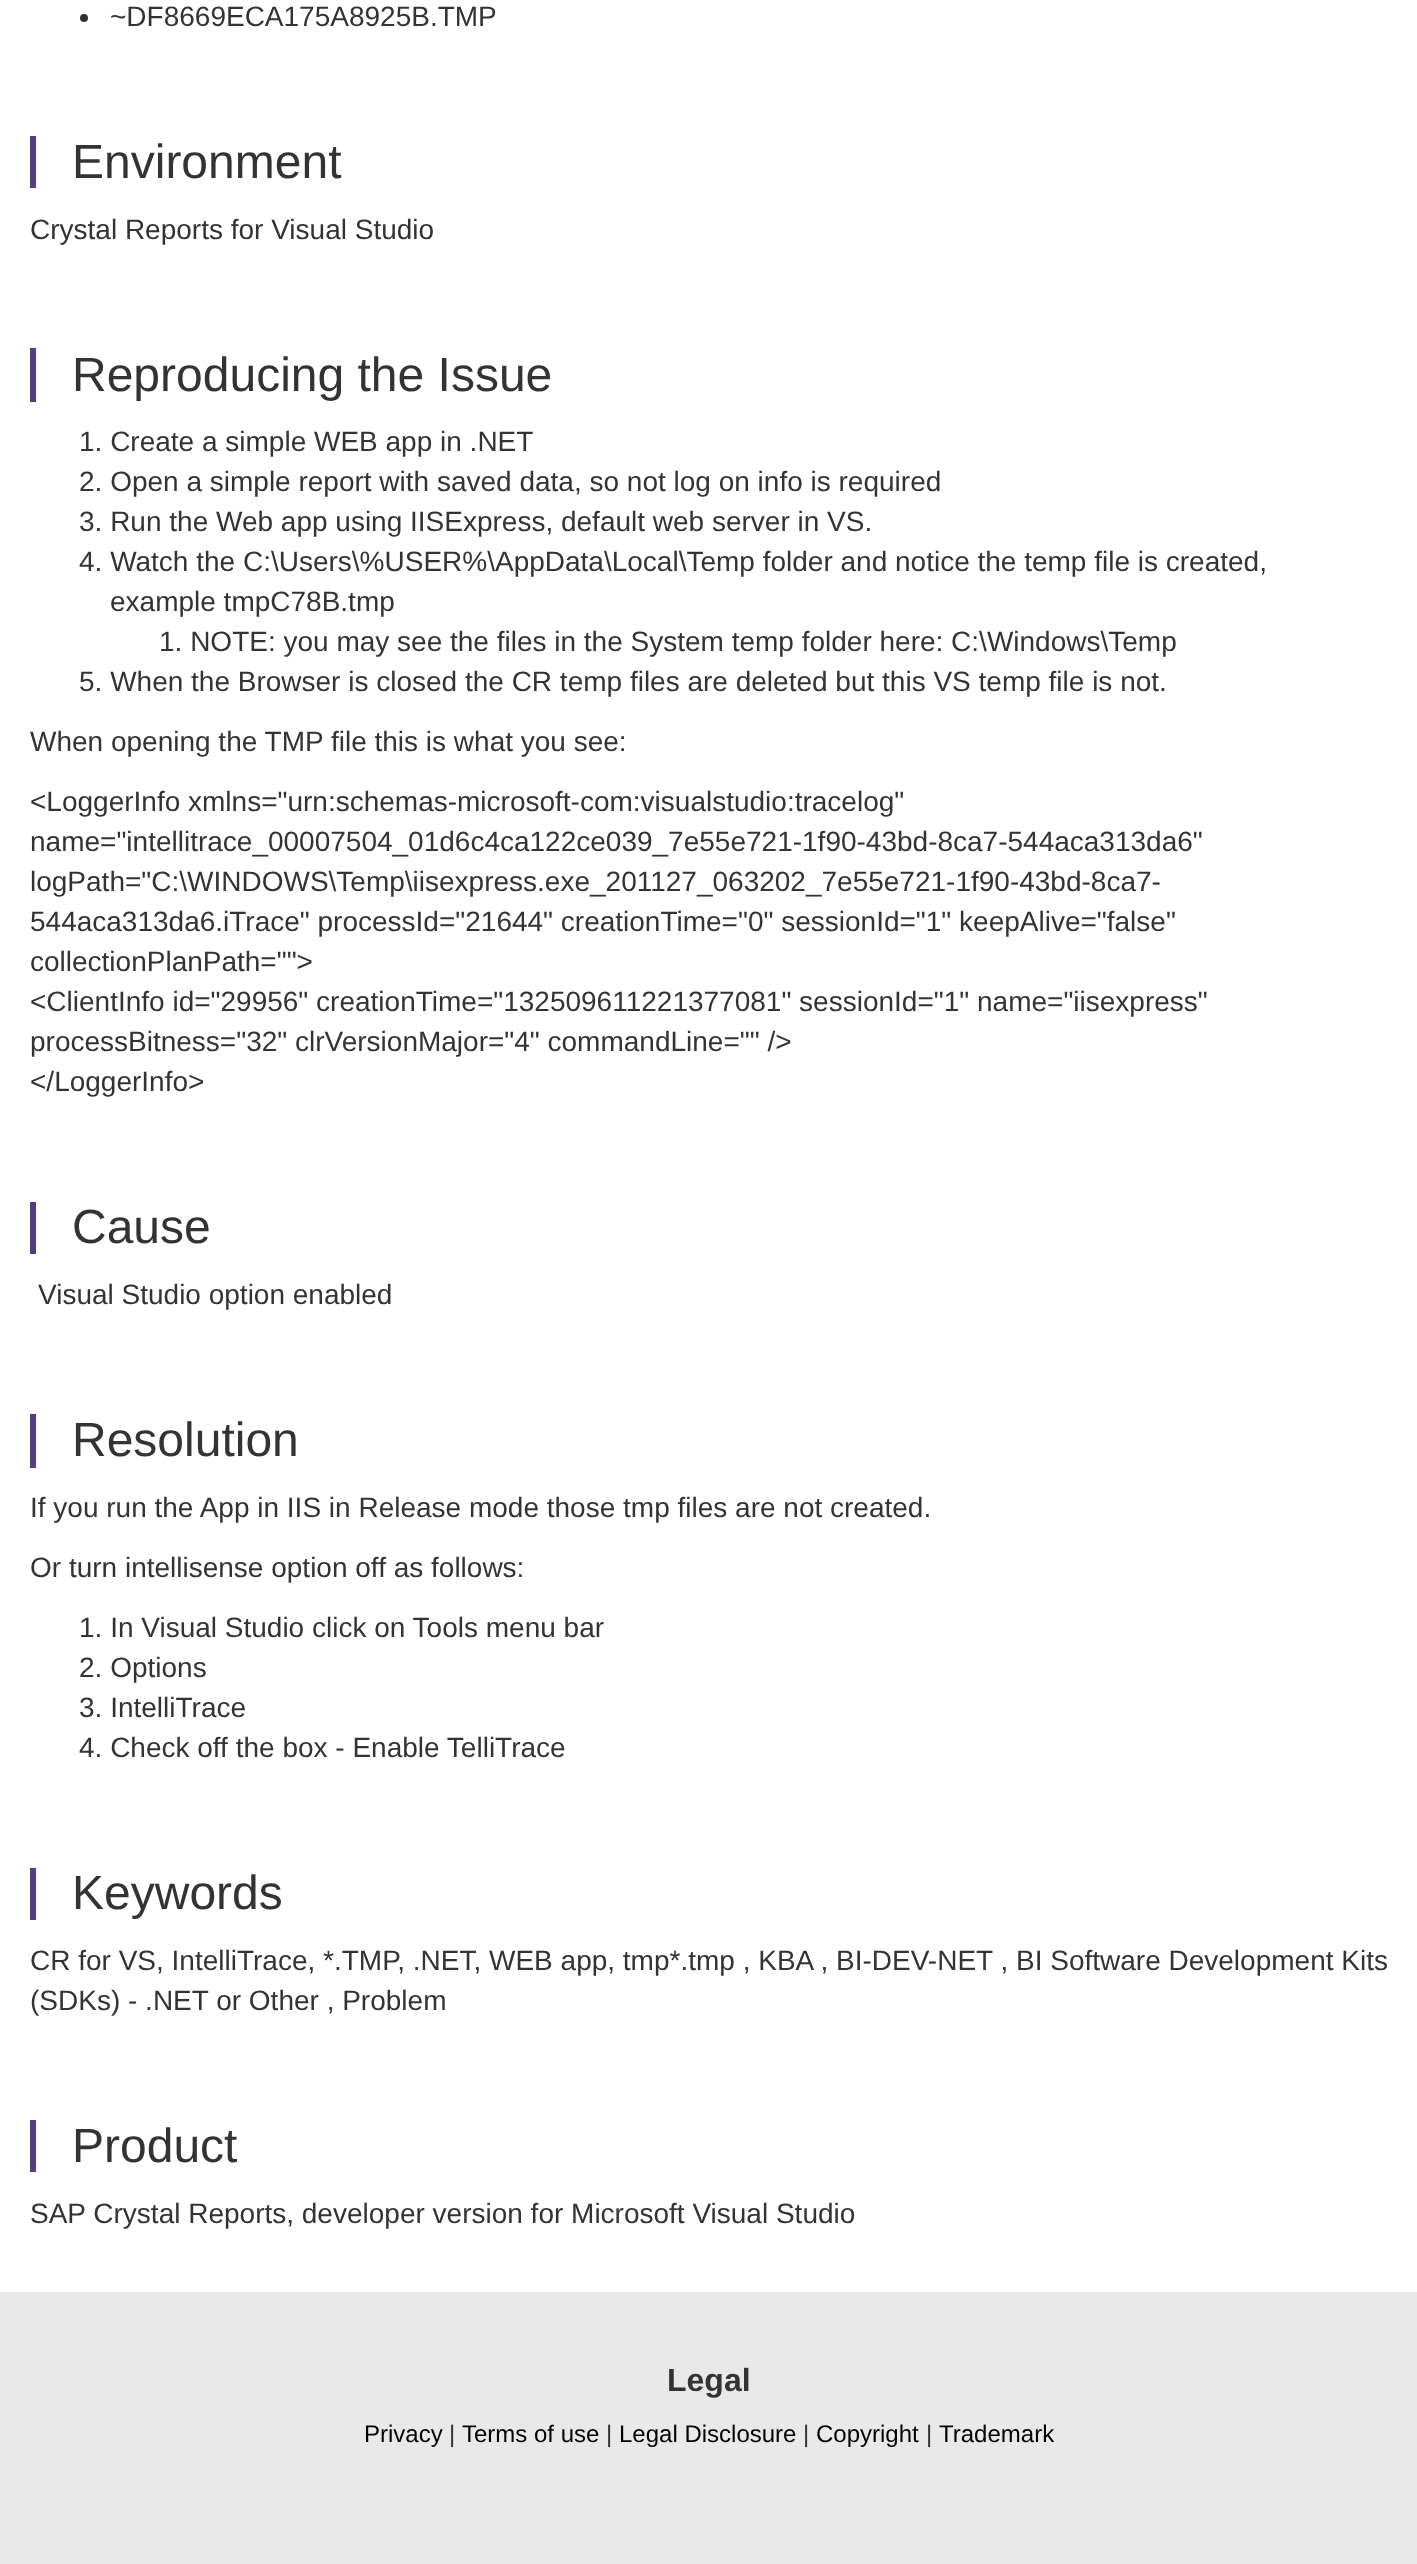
async function draw(canvas) {
	canvas.width = 1417;
	canvas.height = 2564;
	const c = canvas.getContext('2d');
	c.miterLimit = 4;
	c.fontKerning = 'normal';

	c.fillStyle = '#fff';
	c.fillRect(0, 0, 1417, 2564);
	c.fillStyle = '#333';
	c.beginPath();
	c.arc(84, 18, 4, 0, 2 * Math.PI);
	c.fill();
	c.font = '28px Liberation Sans';
	c.fillText('~DF8669ECA175A8925B.TMP', 110, 26);
	c.fillStyle = '#563d7c';
	c.fillRect(30, 136, 6, 52);
	c.font = '48px Liberation Sans';
	c.fillStyle = '#333';
	c.fillText('Environment', 72, 178);
	c.font = '28px Liberation Sans';
	c.fillText('Crystal Reports for Visual Studio', 30, 239);
	c.fillStyle = '#563d7c';
	c.fillRect(30, 348, 6, 54);
	c.font = '48px Liberation Sans';
	c.fillStyle = '#333';
	c.fillText('Reproducing the Issue', 72, 391);
	c.font = '28px Liberation Sans';
	for (const [text, x, y] of [
		['1. Create a simple WEB app in .NET', 79, 451],
		['2. Open a simple report with saved data, so not log on info is required', 79, 491],
		['3. Run the Web app using IISExpress, default web server in VS.', 79, 531],
		['4. Watch the C:\\Users\\%USER%\\AppData\\Local\\Temp folder and notice the temp file is created,', 79, 571],
		['example tmpC78B.tmp', 110, 611],
		['1. NOTE: you may see the files in the System temp folder here: C:\\Windows\\Temp', 159, 651],
		['5. When the Browser is closed the CR temp files are deleted but this VS temp file is not.', 79, 691],
		['When opening the TMP file this is what you see:', 30, 751],
		['<LoggerInfo xmlns="urn:schemas-microsoft-com:visualstudio:tracelog"', 30, 811],
		['name="intellitrace_00007504_01d6c4ca122ce039_7e55e721-1f90-43bd-8ca7-544aca313da6"', 30, 851],
		['logPath="C:\\WINDOWS\\Temp\\iisexpress.exe_201127_063202_7e55e721-1f90-43bd-8ca7-', 30, 891],
		['544aca313da6.iTrace" processId="21644" creationTime="0" sessionId="1" keepAlive="false"', 30, 931],
		['collectionPlanPath="">', 30, 971],
		['<ClientInfo id="29956" creationTime="132509611221377081" sessionId="1" name="iisexpress"', 30, 1011],
		['processBitness="32" clrVersionMajor="4" commandLine="" />', 30, 1051],
		['<\/LoggerInfo>', 30, 1091],
	]) {
		c.fillText(text, x, y);
	}
	c.fillStyle = '#563d7c';
	c.fillRect(30, 1202, 6, 52);
	c.font = '48px Liberation Sans';
	c.fillStyle = '#333';
	c.fillText('Cause', 72, 1243);
	c.font = '28px Liberation Sans';
	c.fillText('Visual Studio option enabled', 38, 1304);
	c.fillStyle = '#563d7c';
	c.fillRect(30, 1414, 6, 54);
	c.font = '48px Liberation Sans';
	c.fillStyle = '#333';
	c.fillText('Resolution', 72, 1456);
	c.font = '28px Liberation Sans';
	for (const [text, x, y] of [
		['If you run the App in IIS in Release mode those tmp files are not created.', 30, 1517],
		['Or turn intellisense option off as follows:', 30, 1577],
		['1. In Visual Studio click on Tools menu bar', 79, 1637],
		['2. Options', 79, 1677],
		['3. IntelliTrace', 79, 1717],
		['4. Check off the box - Enable TelliTrace', 79, 1757],
	]) {
		c.fillText(text, x, y);
	}
	c.fillStyle = '#563d7c';
	c.fillRect(30, 1868, 6, 52);
	c.font = '48px Liberation Sans';
	c.fillStyle = '#333';
	c.fillText('Keywords', 72, 1909);
	c.font = '28px Liberation Sans';
	c.fillText('CR for VS, IntelliTrace, *.TMP, .NET, WEB app, tmp*.tmp , KBA , BI-DEV-NET , BI Software Development Kits', 30, 1970);
	c.fillText('(SDKs) - .NET or Other , Problem', 30, 2010);
	c.fillStyle = '#563d7c';
	c.fillRect(30, 2120, 6, 52);
	c.font = '48px Liberation Sans';
	c.fillStyle = '#333';
	c.fillText('Product', 72, 2162);
	c.font = '28px Liberation Sans';
	c.fillText('SAP Crystal Reports, developer version for Microsoft Visual Studio', 30, 2223);
	c.fillStyle = '#e9e9e9';
	c.fillRect(0, 2292, 1417, 272);
	c.font = 'bold 32px Liberation Sans';
	c.fillStyle = '#333';
	c.fillText('Legal', 667, 2391);
	c.font = '24px Liberation Sans';
	c.fillStyle = '#000';
	c.fillText('Privacy', 364, 2442);
	c.fillStyle = '#333';
	c.fillText('|', 449, 2442);
	c.fillStyle = '#000';
	c.fillText('Terms of use', 462, 2442);
	c.fillStyle = '#333';
	c.fillText('|', 606, 2442);
	c.fillStyle = '#000';
	c.fillText('Legal Disclosure', 619, 2442);
	c.fillStyle = '#333';
	c.fillText('|', 803, 2442);
	c.fillStyle = '#000';
	c.fillText('Copyright', 816, 2442);
	c.fillStyle = '#333';
	c.fillText('|', 926, 2442);
	c.fillStyle = '#000';
	c.fillText('Trademark', 939, 2442);
}

draw(document.querySelector('canvas'));
